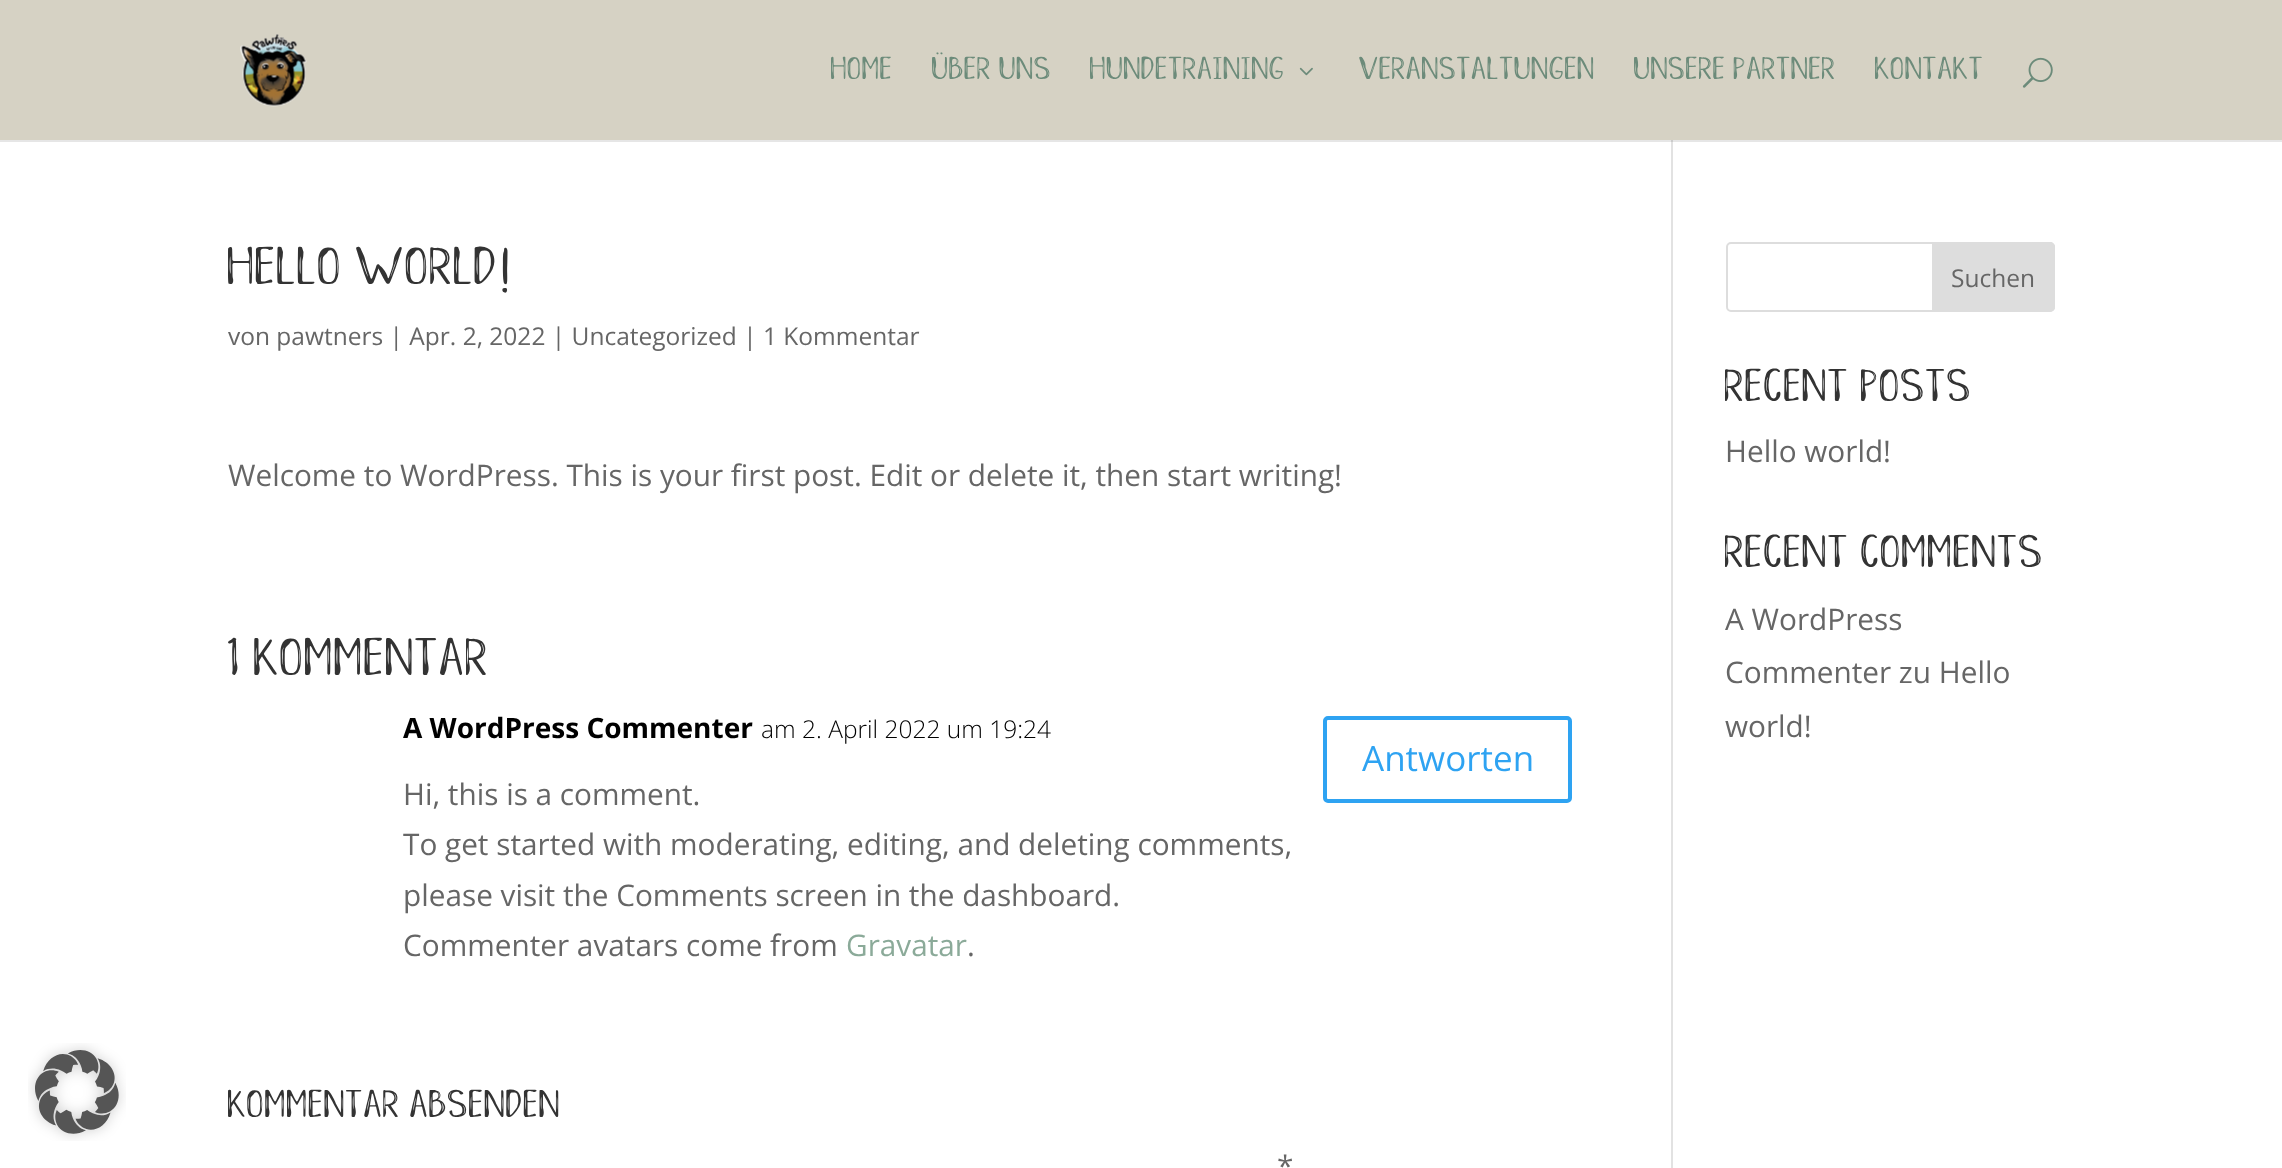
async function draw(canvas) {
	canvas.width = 2282;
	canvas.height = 1168;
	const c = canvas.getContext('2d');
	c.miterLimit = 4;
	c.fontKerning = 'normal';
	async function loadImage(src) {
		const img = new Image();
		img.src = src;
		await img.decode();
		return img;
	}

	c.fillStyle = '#fff';
	c.fillRect(0, 0, 2282, 1168);
	c.fillStyle = '#e6e6e6';
	c.fillRect(0, 140, 2282, 2);
	c.drawImage(await loadImage('img1.png'), 28, 1043, 98, 98);
	c.fillStyle = '#d6d2c4';
	c.fillRect(0, 0, 2282, 140);
	c.drawImage(await loadImage('img2.png'), 240, 34, 67, 73);
	c.font = '31.5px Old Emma';
	c.fillStyle = '#6c8b7a';
	for (const [text, x, y] of [
		['HOME', 831, 79],
		['ÜBER UNS', 932, 79],
		['HUNDETRAINING', 1090, 79],
	]) {
		c.fillText(text, x, y);
	}
	c.drawImage(await loadImage('img3.png'), 1299, 67, 14, 9);
	for (const [text, x, y] of [
		['VERANSTALTUNGEN', 1359, 79],
		['UNSERE PARTNER', 1634, 79],
		['KONTAKT', 1875, 79],
	]) {
		c.fillText(text, x, y);
	}
	c.drawImage(await loadImage('img4.png'), 2022, 57, 31, 31);
	c.fillStyle = '#e2e2e2';
	c.fillRect(1671, 140, 2, 1028);
	c.fillStyle = '#cbcbcb';
	c.fillRect(1671, 140, 2, 2);
	c.font = '52.5px Old Emma';
	c.fillStyle = '#333';
	c.fillText('Hello world!', 228, 284);
	c.font = '24.5px Open Sans';
	c.fillStyle = '#666';
	c.fillText('von pawtners | Apr. 2, 2022 | Uncategorized | 1 Kommentar', 228, 345);
	c.font = '29.75px Open Sans';
	c.fillText('Welcome to WordPress. This is your first post. Edit or delete it, then start writing!', 228, 486);
	c.font = '52.5px Old Emma';
	c.fillStyle = '#333';
	c.fillText('1 Kommentar', 228, 675);
	c.font = 'bold 28px Open Sans';
	c.fillStyle = '#000';
	c.fillText('A WordPress Commenter', 403, 738);
	c.font = '300 24.5px Open Sans';
	c.fillText('am 2. April 2022 um 19:24', 761, 738);
	c.beginPath();
	c.roundRect(1325, 718, 245, 83, 3);
	c.strokeStyle = '#2ea3f2';
	c.lineWidth = 4;
	c.stroke();
	c.font = '35px Open Sans';
	c.fillStyle = '#2ea3f2';
	c.fillText('Antworten', 1362, 771);
	c.font = '29.75px Open Sans';
	c.fillStyle = '#666';
	for (const [text, x, y] of [
		['Hi, this is a comment.', 403, 805],
		['To get started with moderating, editing, and deleting comments,', 403, 855],
		['please visit the Comments screen in the dashboard.', 403, 906],
		['Commenter avatars come from', 403, 956],
	]) {
		c.fillText(text, x, y);
	}
	c.fillStyle = '#8baa99';
	c.fillText('Gravatar', 846, 956);
	c.fillStyle = '#666';
	c.fillText('.', 967, 956);
	c.font = '38.5px Old Emma';
	c.fillStyle = '#333';
	c.fillText('Kommentar absenden', 228, 1117);
	c.font = '29.75px Open Sans';
	c.fillStyle = '#666';
	c.fillText('*', 1277, 1177);
	c.beginPath();
	c.roundRect(1727, 243, 327, 68, 4);
	c.strokeStyle = '#ddd';
	c.lineWidth = 2;
	c.stroke();
	c.fillStyle = '#ddd';
	c.beginPath();
	c.roundRect(1933, 243, 121, 68, [0, 4, 4, 0]);
	c.fill();
	c.stroke();
	c.font = '24.5px Open Sans';
	c.fillStyle = '#666';
	c.fillText('Suchen', 1951, 287);
	c.font = '45.5px Old Emma';
	c.fillStyle = '#333';
	c.fillText('Recent Posts', 1725, 401);
	c.font = '29.75px Open Sans';
	c.fillStyle = '#666';
	c.fillText('Hello world!', 1725, 462);
	c.font = '45.5px Old Emma';
	c.fillStyle = '#333';
	c.fillText('Recent Comments', 1725, 567);
	c.font = '29.75px Open Sans';
	c.fillStyle = '#666';
	for (const [text, x, y] of [
		['A WordPress', 1725, 630],
		['Commenter zu Hello', 1725, 683],
		['world!', 1725, 737],
	]) {
		c.fillText(text, x, y);
	}
}

draw(document.querySelector('canvas'));
